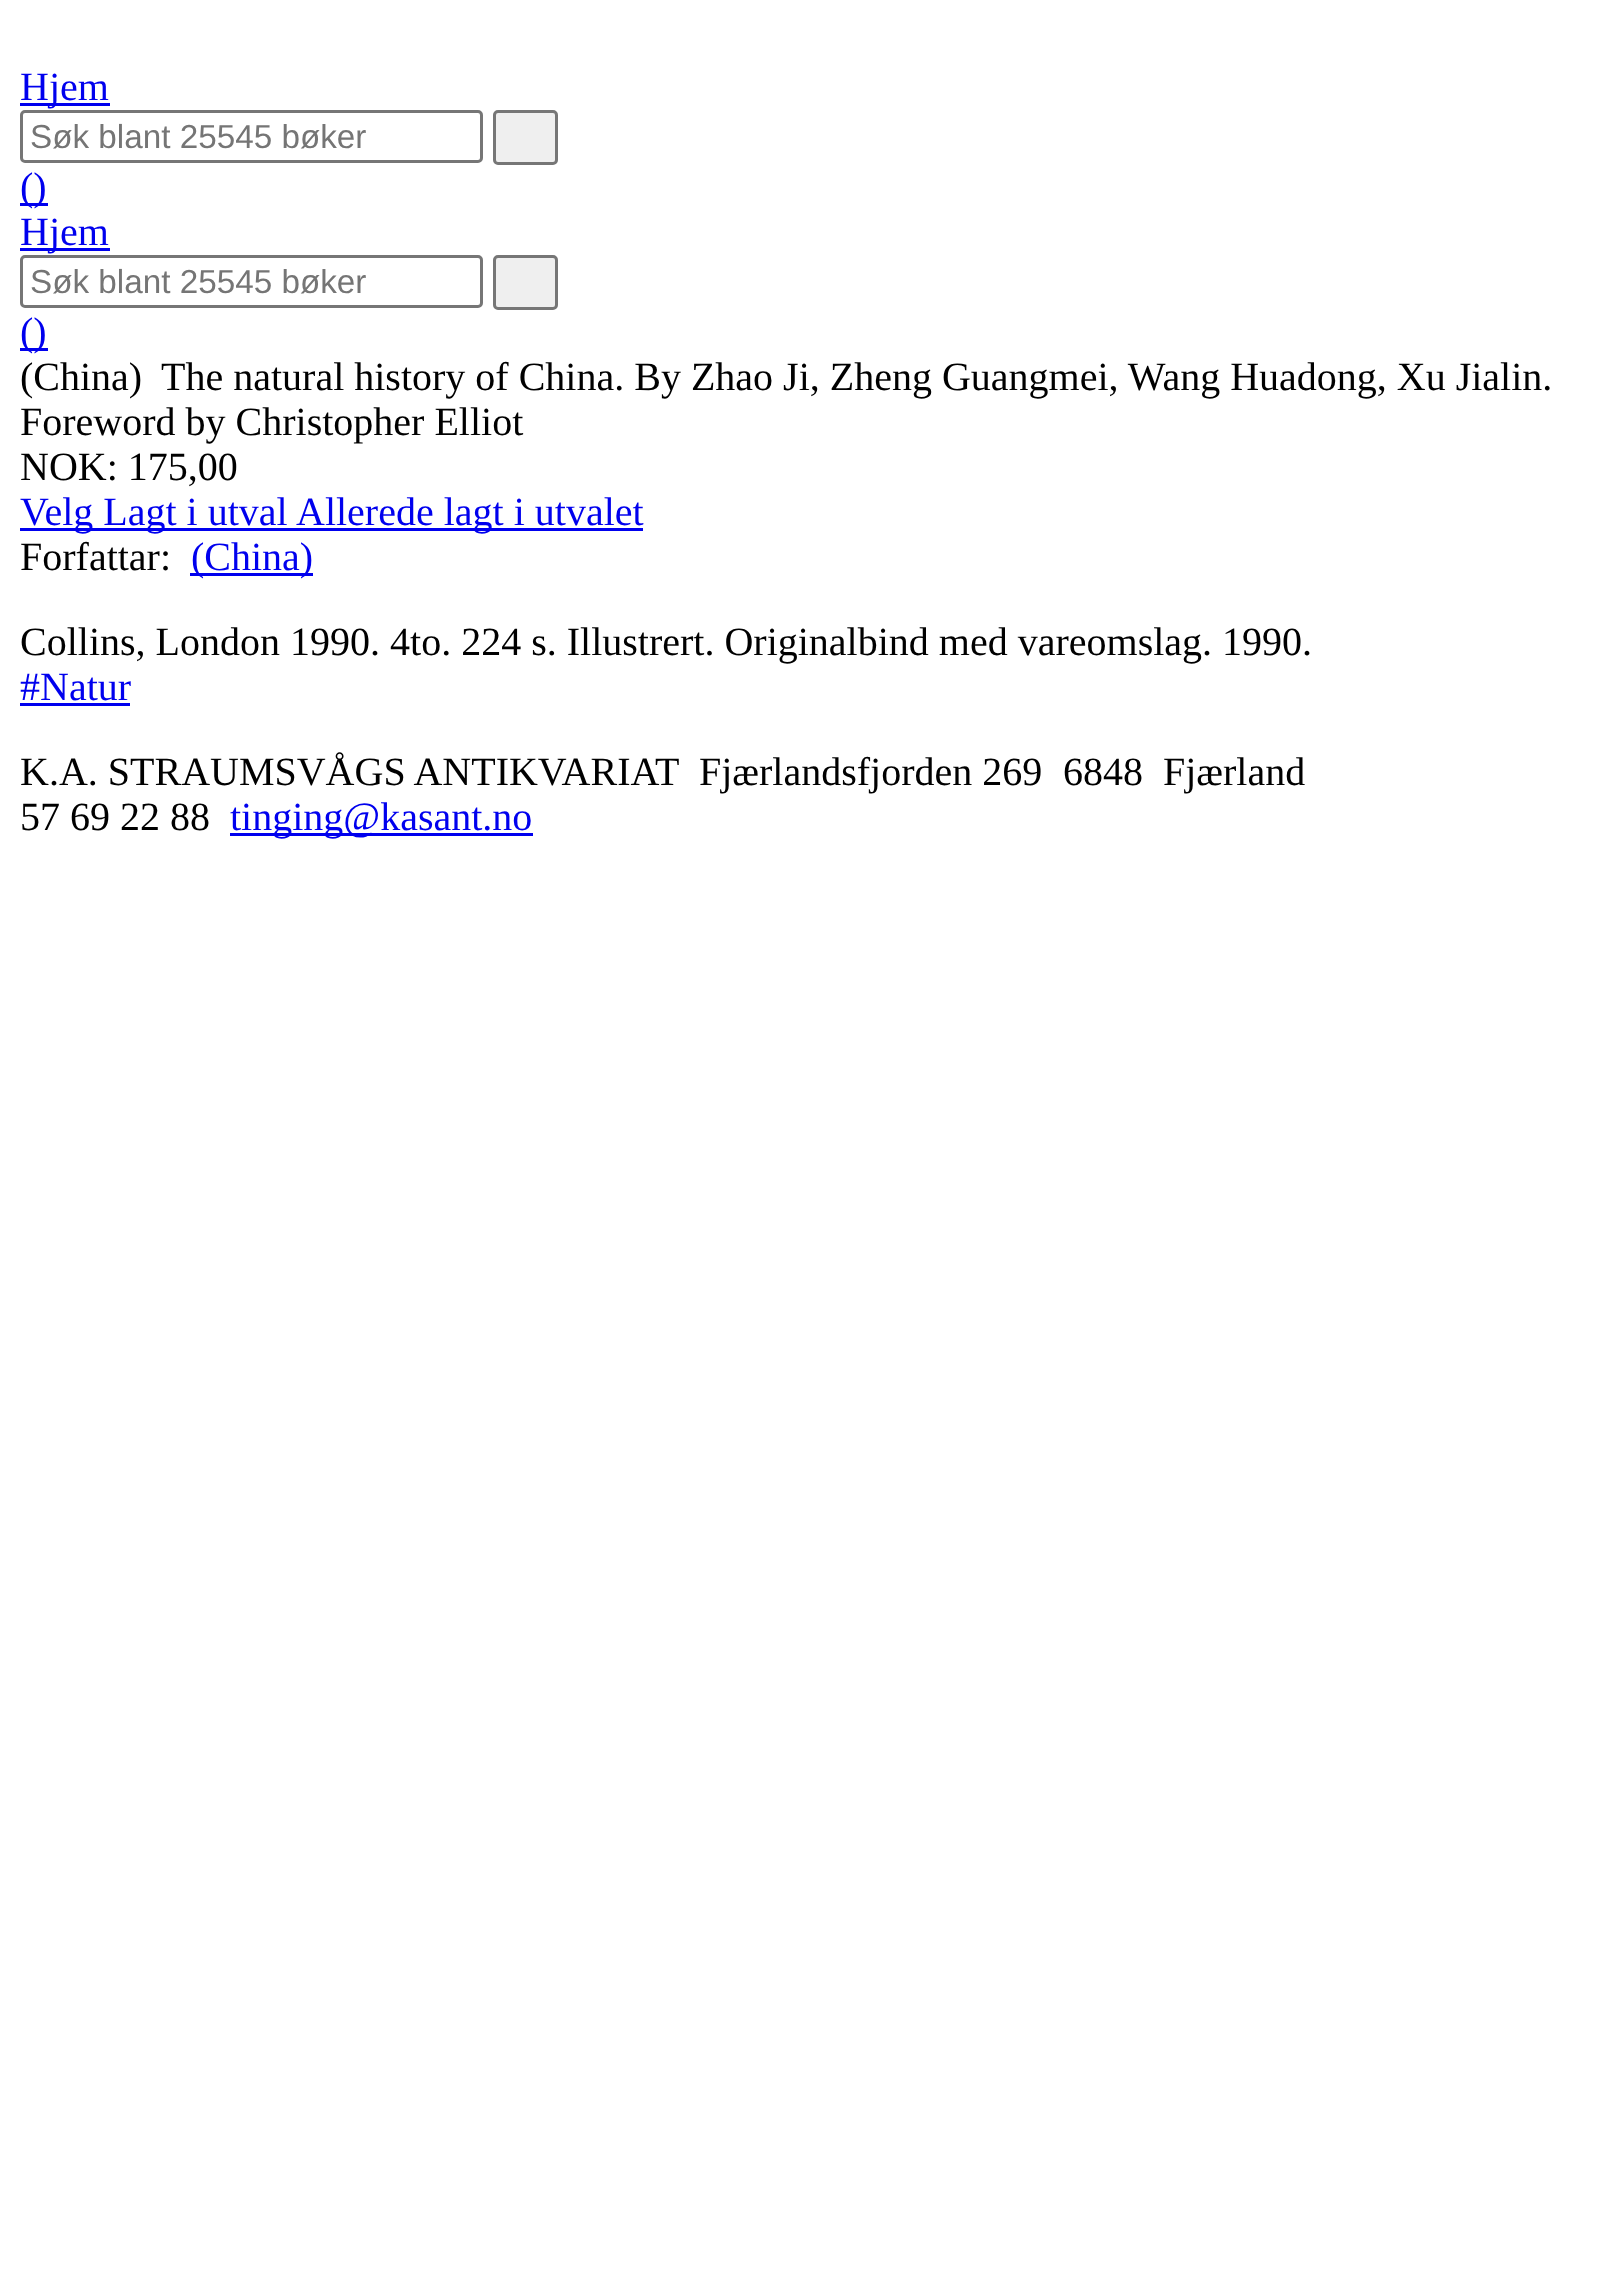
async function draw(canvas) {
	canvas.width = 1602;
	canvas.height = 2276;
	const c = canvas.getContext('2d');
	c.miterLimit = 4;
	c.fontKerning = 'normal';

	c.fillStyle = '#fff';
	c.fillRect(0, 0, 1602, 2276);
	c.fillStyle = '#00e';
	c.fillRect(20, 103, 90, 3);
	c.font = '40px Liberation Serif';
	c.fillText('Hjem', 20, 100);
	c.beginPath();
	c.roundRect(21.5, 111.5, 460, 50, 3.5);
	c.strokeStyle = '#767676';
	c.lineWidth = 3;
	c.stroke();
	c.font = '33.25px Liberation Sans';
	c.fillStyle = '#757575';
	c.fillText('Søk blant 25545 bøker', 30, 148);
	c.fillStyle = '#efefef';
	c.beginPath();
	c.roundRect(494.5, 111.5, 62, 52, 3.5);
	c.fill();
	c.stroke();
	c.fillStyle = '#00e';
	c.fillRect(20, 203, 28, 3);
	c.font = '40px Liberation Serif';
	c.fillText('()', 20, 200);
	c.fillRect(20, 248, 90, 3);
	c.fillText('Hjem', 20, 245);
	c.beginPath();
	c.roundRect(21.5, 256.5, 460, 50, 3.5);
	c.stroke();
	c.font = '33.25px Liberation Sans';
	c.fillStyle = '#757575';
	c.fillText('Søk blant 25545 bøker', 30, 293);
	c.fillStyle = '#efefef';
	c.beginPath();
	c.roundRect(494.5, 256.5, 62, 52, 3.5);
	c.fill();
	c.stroke();
	c.fillStyle = '#00e';
	c.fillRect(20, 348, 28, 3);
	c.font = '40px Liberation Serif';
	c.fillText('()', 20, 345);
	c.fillStyle = '#000';
	for (const [text, x, y] of [
		['(China)', 20, 390],
		['The natural history of China. By Zhao Ji, Zheng Guangmei, Wang Huadong, Xu Jialin.', 161, 390],
		['Foreword by Christopher Elliot', 20, 435],
		['NOK: 175,00', 20, 480],
	]) {
		c.fillText(text, x, y);
	}
	c.fillStyle = '#00e';
	c.fillRect(20, 528, 623, 3);
	c.fillText('Velg Lagt i utval', 20, 525);
	c.fillText('Allerede lagt i utvalet', 296, 525);
	c.fillStyle = '#000';
	c.fillText('Forfattar:', 20, 570);
	c.fillStyle = '#00e';
	c.fillRect(190, 573, 123, 3);
	c.fillText('(China)', 191, 570);
	c.fillStyle = '#000';
	c.fillText('Collins, London 1990. 4to. 224 s. Illustrert. Originalbind med vareomslag. 1990.', 20, 655);
	c.fillStyle = '#00e';
	c.fillText('#Natur', 20, 700);
	c.fillRect(20, 703, 110, 3);
	c.fillStyle = '#000';
	for (const [text, x, y] of [
		['K.A. STRAUMSVÅGS ANTIKVARIAT', 20, 785],
		['Fjærlandsfjorden 269', 699, 785],
		['6848', 1063, 785],
		['Fjærland', 1163, 785],
		['57 69 22 88', 20, 830],
	]) {
		c.fillText(text, x, y);
	}
	c.fillStyle = '#00e';
	c.fillRect(230, 833, 303, 3);
	c.fillText('tinging@kasant.no', 230, 830);
}

draw(document.querySelector('canvas'));
